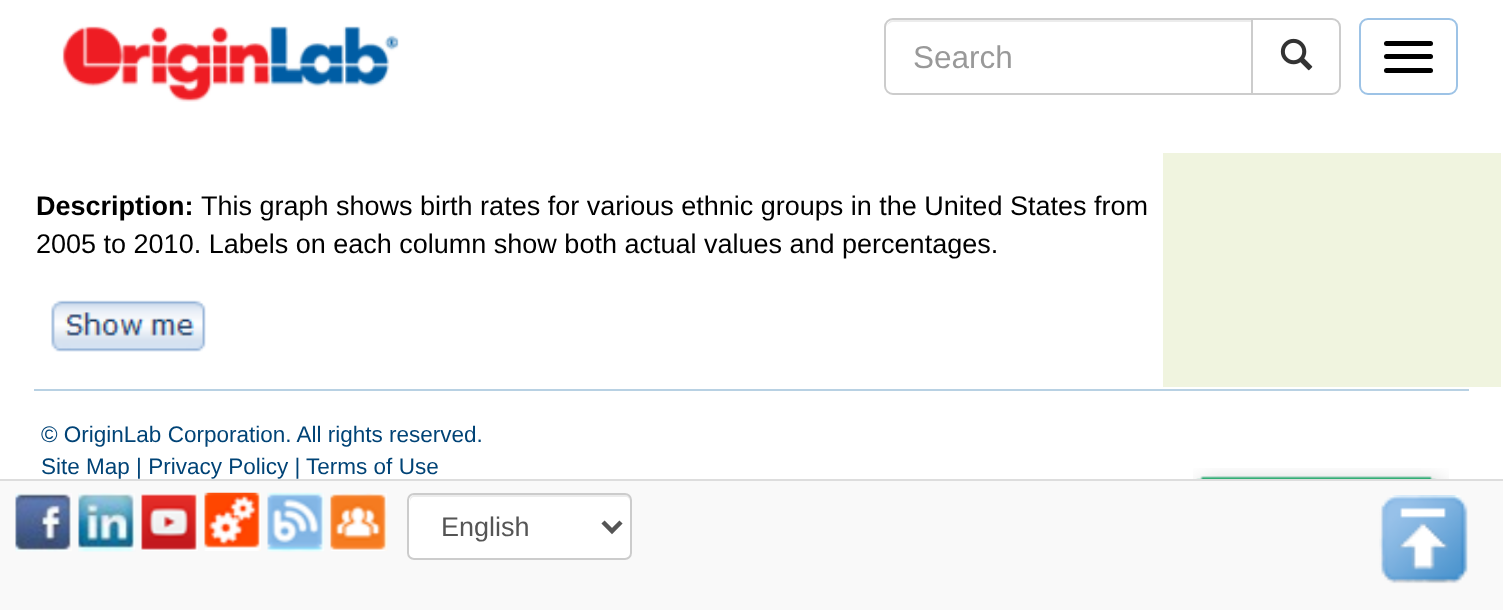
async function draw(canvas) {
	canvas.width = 1503;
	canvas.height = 610;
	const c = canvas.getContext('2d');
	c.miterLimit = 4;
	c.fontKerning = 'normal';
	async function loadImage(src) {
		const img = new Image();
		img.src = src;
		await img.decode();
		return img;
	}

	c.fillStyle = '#fff';
	c.fillRect(0, 0, 1503, 610);
	c.drawImage(await loadImage('img1.png'), 62, 26, 337, 76);
	c.beginPath();
	c.roundRect(1252, 19, 88, 75, [0, 8, 8, 0]);
	c.strokeStyle = '#ccc';
	c.lineWidth = 2;
	c.stroke();
	c.beginPath();
	c.roundRect(884, 18, 369, 77, [9, 0, 0, 9]);
	c.fill();
	c.fillStyle = '#ececec';
	c.beginPath();
	c.moveTo(893, 22);
	c.lineTo(1251, 22);
	c.lineTo(1251, 20);
	c.lineTo(894, 20);
	c.bezierCurveTo(890, 20, 888, 23, 887, 26);
	c.bezierCurveTo(888, 24, 891, 22, 893, 22);
	c.closePath();
	c.fill();
	c.beginPath();
	c.roundRect(885, 19, 367, 75, [8, 0, 0, 8]);
	c.stroke();
	c.font = '31.5px Liberation Sans';
	c.fillStyle = '#999';
	c.fillText('Search', 913, 68);
	c.drawImage(await loadImage('img2.png'), 1280, 38, 33, 33);
	c.beginPath();
	c.roundRect(1360, 19, 97, 75, 8);
	c.strokeStyle = '#9dc3e6';
	c.stroke();
	c.fillStyle = '#000';
	c.beginPath();
	c.roundRect(1384, 41, 49, 5, 2.5);
	c.fill();
	c.beginPath();
	c.roundRect(1384, 54, 49, 5, 2.5);
	c.fill();
	c.beginPath();
	c.roundRect(1384, 68, 49, 5, 2.5);
	c.fill();
	c.font = 'bold 27px Liberation Sans';
	c.fillText('Description:', 36, 215);
	c.font = '27px Liberation Sans';
	c.fillText('This graph shows birth rates for various ethnic groups in the United States from', 201, 215);
	c.fillText('2005 to 2010. Labels on each column show both actual values and percentages.', 36, 253);
	c.drawImage(await loadImage('img3.png'), 51, 300, 155, 52);
	c.fillStyle = '#f0f4df';
	c.fillRect(1163, 153, 338, 234);
	c.fillStyle = '#b8d1e3';
	c.fillRect(34, 389, 1435, 2);
	c.font = '22.5px Liberation Sans';
	c.fillStyle = '#004376';
	c.fillText('© OriginLab Corporation. All rights reserved.', 41, 442);
	c.fillText('Site Map | Privacy Policy | Terms of Use', 41, 474);
	c.drawImage(await loadImage('img4.png'), 1193, 468, 256, 11);
	c.fillStyle = '#f9f9f9';
	c.fillRect(0, 481, 1503, 129);
	c.fillStyle = '#ddd';
	c.fillRect(0, 479, 1503, 2);
	c.drawImage(await loadImage('img5.png'), 15, 493, 57, 59);
	c.drawImage(await loadImage('img6.png'), 78, 493, 58, 59);
	c.drawImage(await loadImage('img7.png'), 141, 493, 57, 58);
	c.drawImage(await loadImage('img8.png'), 204, 492, 57, 59);
	c.drawImage(await loadImage('img9.png'), 267, 492, 58, 60);
	c.drawImage(await loadImage('img10.png'), 330, 493, 58, 58);
	c.fillStyle = '#fff';
	c.beginPath();
	c.roundRect(407, 493, 225, 67, 7);
	c.fill();
	c.fillStyle = '#ececec';
	c.beginPath();
	c.moveTo(414, 497);
	c.lineTo(626, 497);
	c.bezierCurveTo(628, 497, 630, 499, 630, 502);
	c.lineTo(630, 500);
	c.bezierCurveTo(630, 497, 628, 495, 625, 495);
	c.lineTo(415, 495);
	c.bezierCurveTo(412, 495, 410, 497, 410, 500);
	c.lineTo(410, 502);
	c.bezierCurveTo(410, 499, 412, 497, 414, 497);
	c.closePath();
	c.fill();
	c.beginPath();
	c.roundRect(408, 494, 223, 65, 6);
	c.strokeStyle = '#ccc';
	c.stroke();
	c.beginPath();
	c.moveTo(603, 522);
	c.lineTo(612, 531);
	c.lineTo(621, 522);
	c.strokeStyle = '#555';
	c.lineWidth = 4.5;
	c.stroke();
	c.font = '27px Liberation Sans';
	c.fillStyle = '#555';
	c.fillText('English', 441, 536);
	c.drawImage(await loadImage('img11.png'), 1379, 495, 89, 89);
}

draw(document.querySelector('canvas'));
